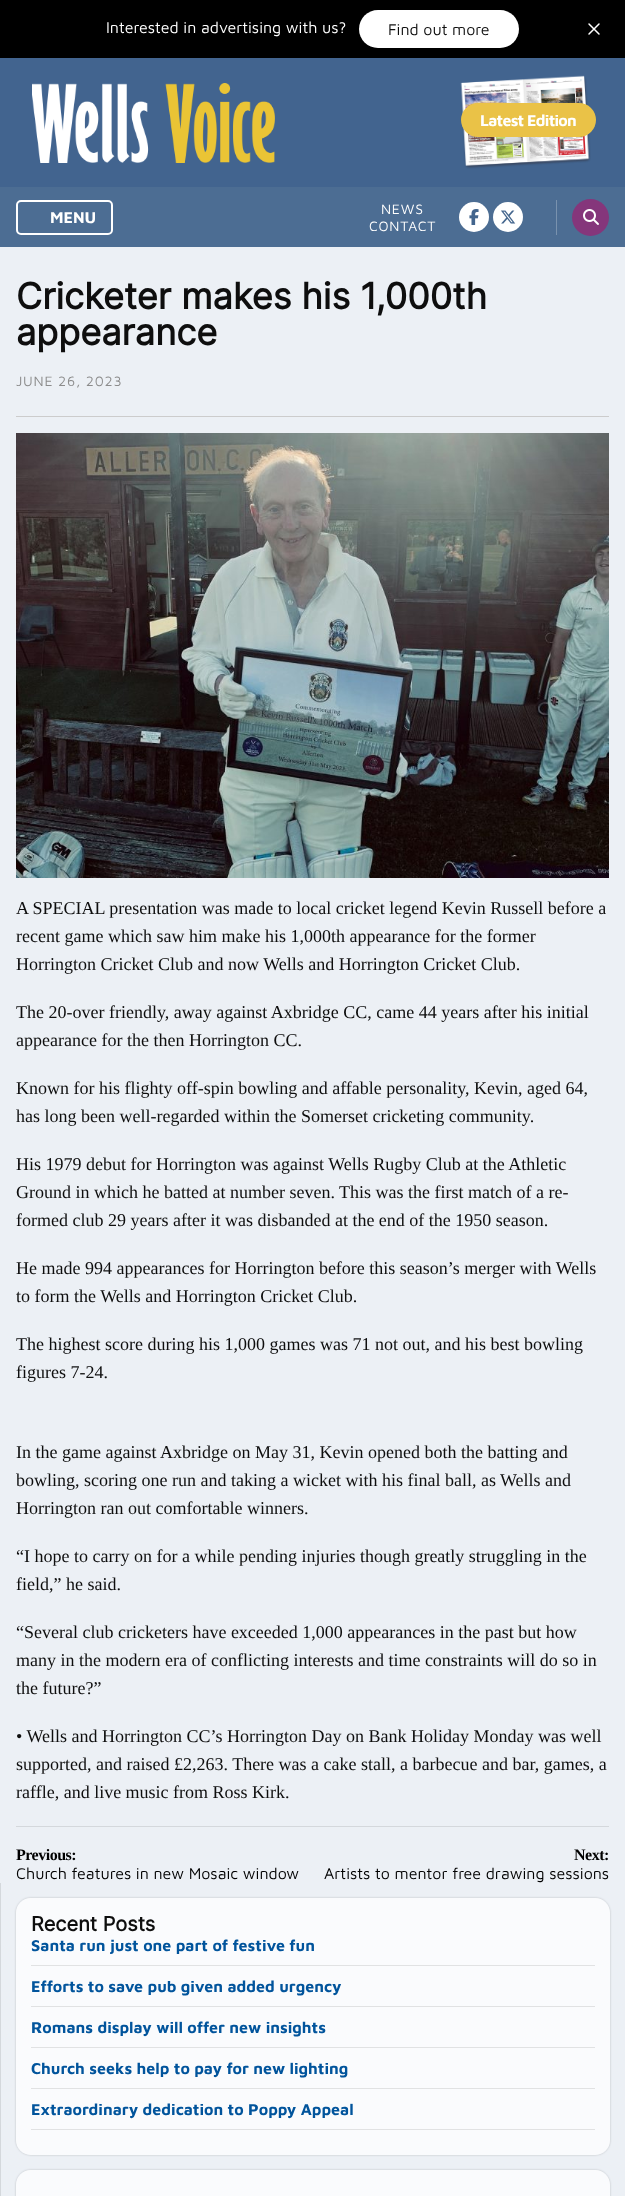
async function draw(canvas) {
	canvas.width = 625;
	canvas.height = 2196;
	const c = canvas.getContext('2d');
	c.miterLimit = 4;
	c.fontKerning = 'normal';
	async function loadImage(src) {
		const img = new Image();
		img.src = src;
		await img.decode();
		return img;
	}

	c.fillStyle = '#ecf0f5';
	c.fillRect(0, 0, 625, 2196);
	c.fillStyle = '#000';
	c.fillRect(0, 0, 625, 58);
	c.font = '16px Maven Pro';
	c.fillStyle = '#fff';
	c.fillText('Interested in advertising with us?', 106, 33);
	c.beginPath();
	c.roundRect(359, 10, 160, 38, 19);
	c.fill();
	c.fillStyle = '#0e0e0e';
	c.fillText('Find out more', 388, 35);
	c.beginPath();
	c.moveTo(599, 24);
	c.lineTo(589, 34);
	c.moveTo(589, 24);
	c.lineTo(599, 34);
	c.strokeStyle = '#fff';
	c.lineWidth = 1.5;
	c.lineCap = 'round';
	c.lineJoin = 'round';
	c.stroke();
	c.fillStyle = '#42648f';
	c.fillRect(0, 58, 625, 129);
	c.drawImage(await loadImage('img1.png'), 32, 83, 243, 80);
	c.drawImage(await loadImage('img2.png'), 460, 75, 131, 94);
	c.fillStyle = '#eac247';
	c.beginPath();
	c.roundRect(461, 103, 135, 34, 17);
	c.fill();
	c.letterSpacing = '-0.75px';
	c.font = 'bold 16px Maven Pro';
	c.fillStyle = '#fff';
	c.fillText('Latest Edition', 480, 126);
	c.fillStyle = '#4c6d93';
	c.fillRect(0, 187, 625, 60);
	c.beginPath();
	c.roundRect(17, 201, 95, 33, 4);
	c.lineWidth = 2;
	c.lineJoin = 'miter';
	c.stroke();
	c.letterSpacing = '0px';
	c.fillStyle = '#fff';
	c.fillText('MENU', 50, 223);
	c.fillStyle = '#7992ae';
	c.fillRect(556, 200, 1, 35);
	c.letterSpacing = '0.75px';
	c.font = '14px Maven Pro';
	c.fillStyle = '#fff';
	c.fillText('NEWS', 381, 214);
	c.fillText('CONTACT', 369, 231);
	c.beginPath();
	c.arc(474, 217, 15, 0, 2 * Math.PI);
	c.fill();
	c.drawImage(await loadImage('img3.png'), 469, 209, 10, 16);
	c.beginPath();
	c.arc(508, 217, 15, 0, 2 * Math.PI);
	c.fill();
	c.drawImage(await loadImage('img4.png'), 501, 210, 15, 14);
	c.fillStyle = '#85367b';
	c.beginPath();
	c.arc(590.5, 217.5, 18.5, 0, 2 * Math.PI);
	c.fill();
	c.drawImage(await loadImage('img5.png'), 583, 209, 16, 16);
	c.letterSpacing = '0px';
	c.font = 'bold 36px Inter';
	c.fillStyle = '#0e0e0e';
	c.fillText('Cricketer makes his 1,000th', 16, 309);
	c.fillText('appearance', 16, 345);
	c.letterSpacing = '0.75px';
	c.font = '14px Maven Pro';
	c.fillStyle = '#8b8b8b';
	c.fillText('JUNE 26, 2023', 16, 386);
	c.fillStyle = '#ccc';
	c.fillRect(16, 416, 593, 1);
	c.drawImage(await loadImage('img6.png'), 16, 433, 593, 445);
	c.letterSpacing = '0px';
	c.font = '18px Liberation Serif';
	c.fillStyle = '#0e0e0e';
	for (const [text, x, y] of [
		['A SPECIAL presentation was made to local cricket legend Kevin Russell before a', 16, 914],
		['recent game which saw him make his 1,000th appearance for the former', 16, 942],
		['Horrington Cricket Club and now Wells and Horrington Cricket Club.', 16, 970],
		['The 20-over friendly, away against Axbridge CC, came 44 years after his initial', 16, 1018],
		['appearance for the then Horrington CC.', 16, 1046],
		['Known for his flighty off-spin bowling and affable personality, Kevin, aged 64,', 16, 1094],
		['has long been well-regarded within the Somerset cricketing community.', 16, 1122],
		['His 1979 debut for Horrington was against Wells Rugby Club at the Athletic', 16, 1170],
		['Ground in which he batted at number seven. This was the first match of a re-', 16, 1198],
		['formed club 29 years after it was disbanded at the end of the 1950 season.', 16, 1226],
		['He made 994 appearances for Horrington before this season’s merger with Wells', 16, 1274],
		['to form the Wells and Horrington Cricket Club.', 16, 1302],
		['The highest score during his 1,000 games was 71 not out, and his best bowling', 16, 1350],
		['figures 7-24.', 16, 1378],
		['In the game against Axbridge on May 31, Kevin opened both the batting and', 16, 1458],
		['bowling, scoring one run and taking a wicket with his final ball, as Wells and', 16, 1486],
		['Horrington ran out comfortable winners.', 16, 1514],
		['“I hope to carry on for a while pending injuries though greatly struggling in the', 16, 1562],
		['field,” he said.', 16, 1590],
		['“Several club cricketers have exceeded 1,000 appearances in the past but how', 16, 1638],
		['many in the modern era of conflicting interests and time constraints will do so in', 16, 1666],
		['the future?”', 16, 1694],
		['• Wells and Horrington CC’s Horrington Day on Bank Holiday Monday was well', 16, 1742],
		['supported, and raised £2,263. There was a cake stall, a barbecue and bar, games, a', 16, 1770],
		['raffle, and live music from Ross Kirk.', 16, 1798],
	]) {
		c.fillText(text, x, y);
	}
	c.fillStyle = '#d4d8dc';
	c.fillRect(16, 1826, 593, 1);
	c.letterSpacing = '-0.5px';
	c.font = 'bold 16px Liberation Serif';
	c.fillStyle = '#000';
	c.fillText('Previous:', 16, 1860);
	c.letterSpacing = '0px';
	c.font = '16px Maven Pro';
	c.fillText('Church features in new Mosaic window', 16, 1879);
	c.letterSpacing = '-0.5px';
	c.font = 'bold 16px Liberation Serif';
	c.fillText('Next:', 574, 1860);
	c.letterSpacing = '0px';
	c.font = '16px Maven Pro';
	c.fillText('Artists to mentor free drawing sessions', 324, 1879);
	c.fillStyle = '#d4d8dc';
	c.fillRect(0, 1883, 1, 313);
	c.save();
	c.beginPath();
	c.moveTo(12, 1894);
	c.lineTo(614, 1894);
	c.lineTo(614, 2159);
	c.lineTo(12, 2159);
	c.closePath();
	c.moveTo(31, 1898);
	c.lineTo(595, 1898);
	c.bezierCurveTo(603.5, 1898, 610, 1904.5, 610, 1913);
	c.lineTo(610, 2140);
	c.bezierCurveTo(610, 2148.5, 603.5, 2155, 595, 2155);
	c.lineTo(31, 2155);
	c.bezierCurveTo(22.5, 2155, 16, 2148.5, 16, 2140);
	c.lineTo(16, 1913);
	c.bezierCurveTo(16, 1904.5, 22.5, 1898, 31, 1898);
	c.closePath();
	c.clip('evenodd');
	c.fillStyle = '#00000033';
	c.filter = 'blur(1px)';
	c.beginPath();
	c.roundRect(16, 1898, 594, 257, 15);
	c.fill();
	c.filter = 'none';
	c.restore();
	c.fillStyle = '#ffffffbf';
	c.beginPath();
	c.roundRect(16, 1898, 594, 257, 15);
	c.fill();
	c.font = 'bold 20px Inter';
	c.fillStyle = '#0e0e0e';
	c.fillText('Recent Posts', 31, 1931);
	c.fillStyle = '#e1e2e3';
	c.fillRect(31, 1965, 564, 1);
	c.font = 'bold 16px Maven Pro';
	c.fillStyle = '#01549c';
	c.fillText('Santa run just one part of festive fun', 31, 1951);
	c.fillStyle = '#e1e2e3';
	c.fillRect(31, 2006, 564, 1);
	c.fillStyle = '#01549c';
	c.fillText('Efforts to save pub given added urgency', 31, 1992);
	c.fillStyle = '#e1e2e3';
	c.fillRect(31, 2047, 564, 1);
	c.fillStyle = '#01549c';
	c.fillText('Romans display will offer new insights', 31, 2033);
	c.fillStyle = '#e1e2e3';
	c.fillRect(31, 2088, 564, 1);
	c.fillStyle = '#01549c';
	c.fillText('Church seeks help to pay for new lighting', 31, 2074);
	c.fillStyle = '#e1e2e3';
	c.fillRect(31, 2129, 564, 1);
	c.fillStyle = '#01549c';
	c.fillText('Extraordinary dedication to Poppy Appeal', 31, 2115);
	c.save();
	c.beginPath();
	c.moveTo(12, 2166);
	c.lineTo(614, 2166);
	c.lineTo(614, 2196);
	c.lineTo(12, 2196);
	c.closePath();
	c.moveTo(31, 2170);
	c.lineTo(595, 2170);
	c.bezierCurveTo(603.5, 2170, 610, 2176.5, 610, 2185);
	c.lineTo(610, 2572);
	c.bezierCurveTo(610, 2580.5, 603.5, 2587, 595, 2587);
	c.lineTo(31, 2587);
	c.bezierCurveTo(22.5, 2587, 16, 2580.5, 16, 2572);
	c.lineTo(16, 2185);
	c.bezierCurveTo(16, 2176.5, 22.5, 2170, 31, 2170);
	c.closePath();
	c.clip('evenodd');
	c.fillStyle = '#00000033';
	c.filter = 'blur(1px)';
	c.beginPath();
	c.roundRect(16, 2170, 594, 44, 15);
	c.fill();
	c.filter = 'none';
	c.restore();
	c.fillStyle = '#ffffffbf';
	c.beginPath();
	c.roundRect(16, 2170, 594, 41, 15);
	c.fill();
}

draw(document.querySelector('canvas'));
